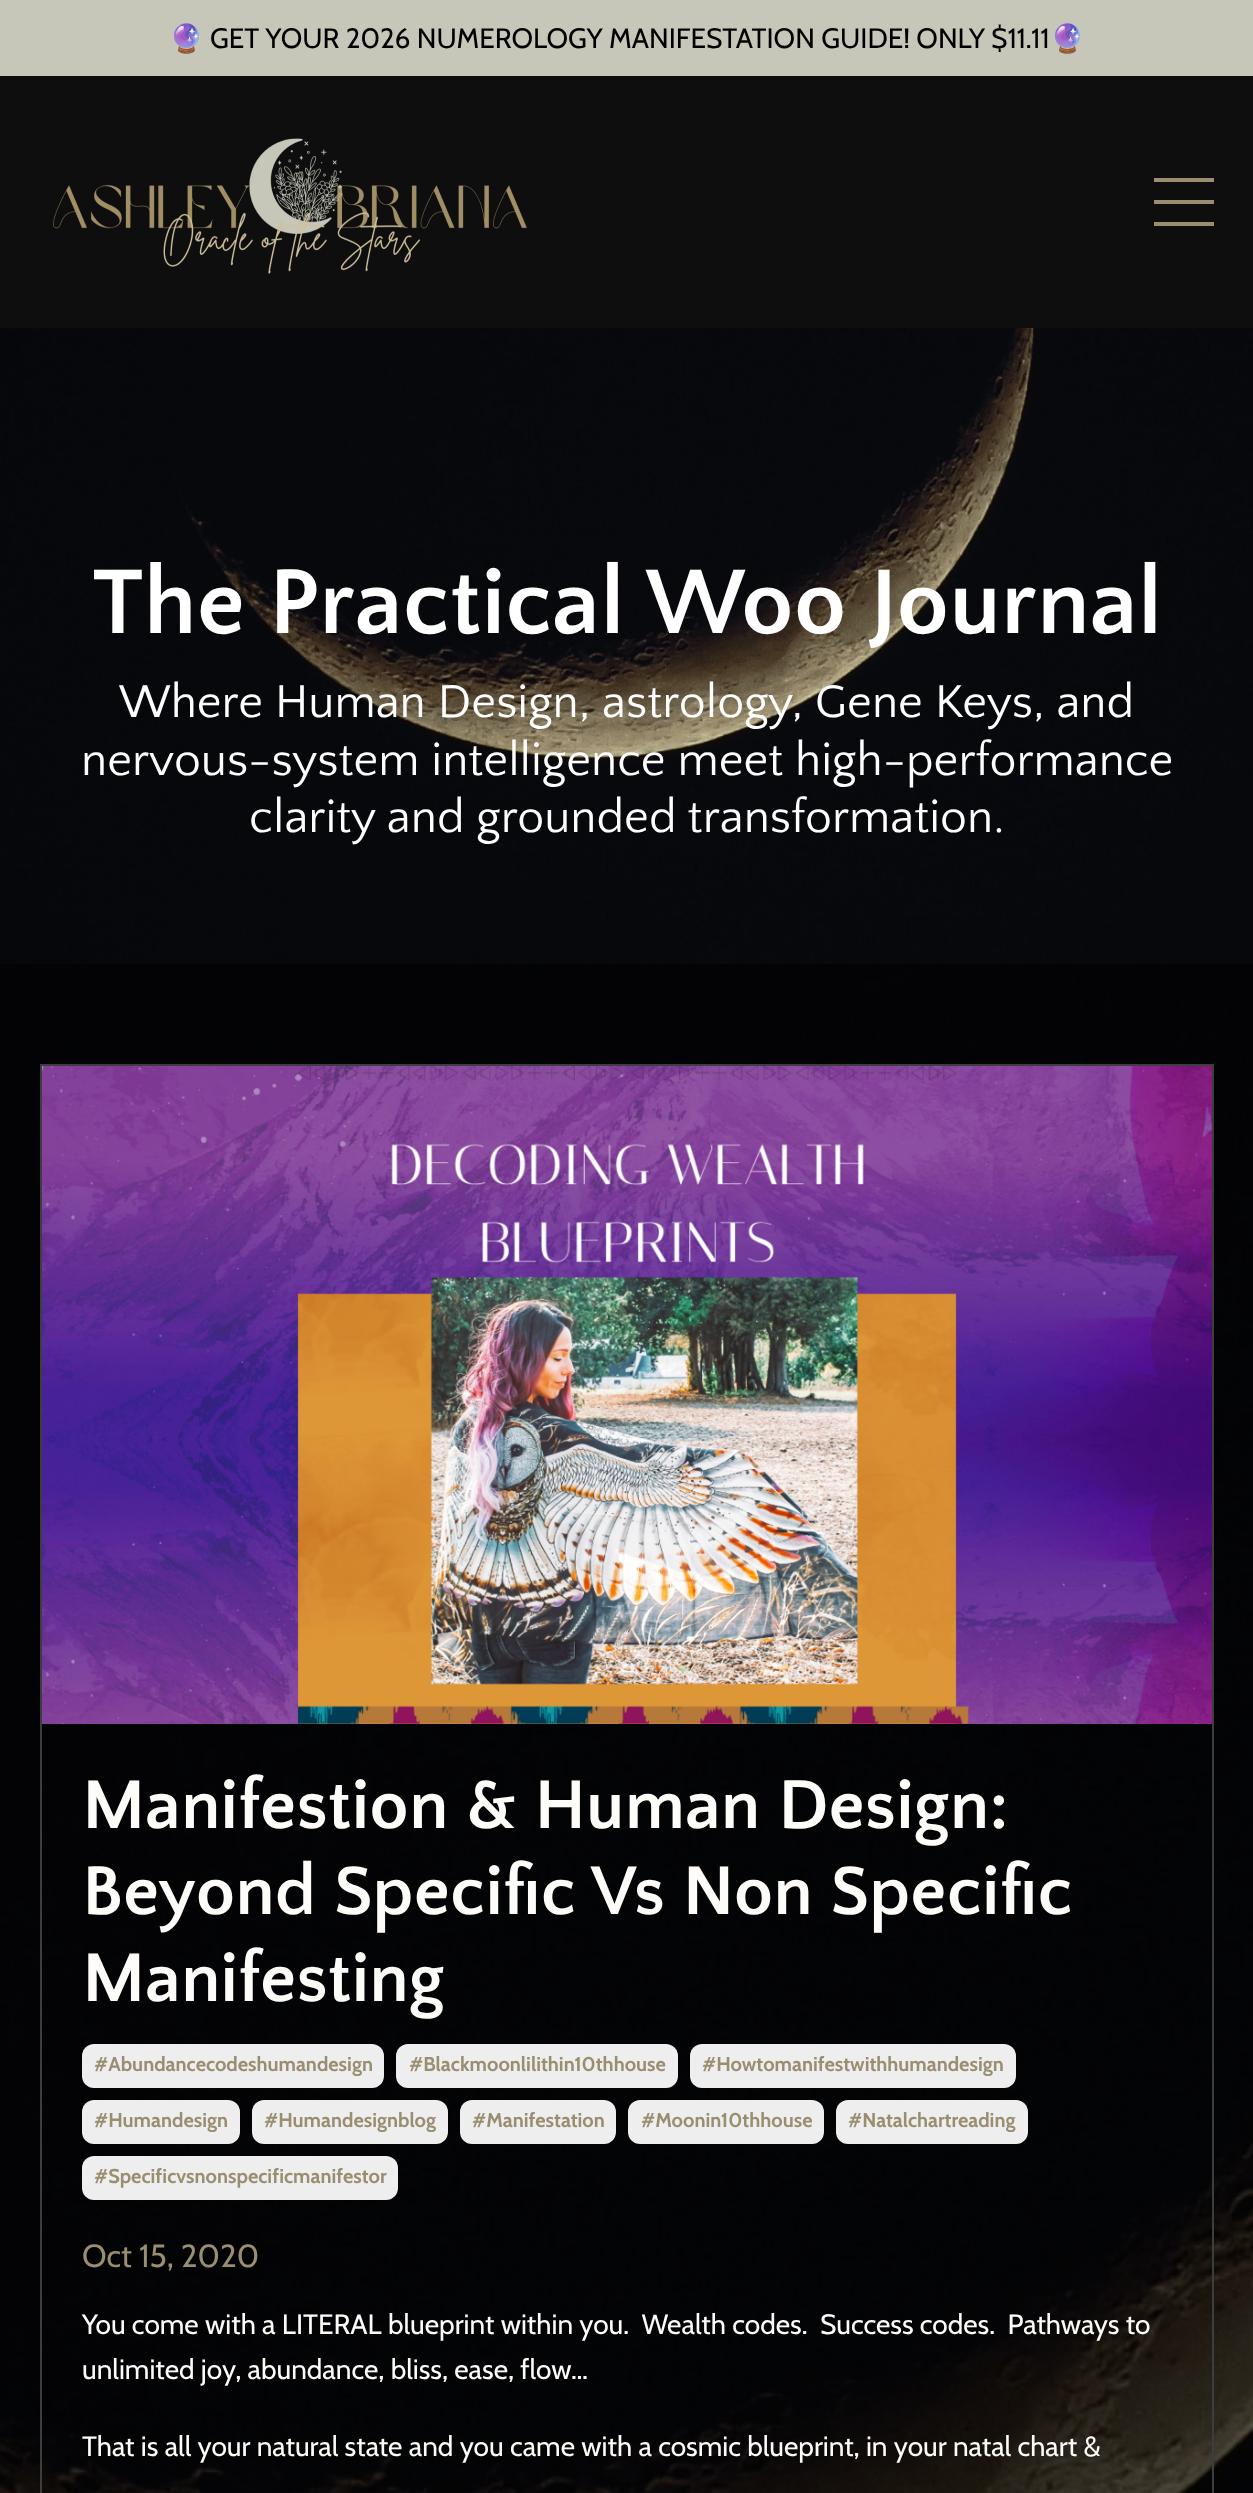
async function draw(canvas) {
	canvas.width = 1253;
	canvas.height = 2493;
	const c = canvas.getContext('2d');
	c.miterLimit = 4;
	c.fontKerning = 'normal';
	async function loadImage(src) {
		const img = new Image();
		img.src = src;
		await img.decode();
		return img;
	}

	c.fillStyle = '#fff';
	c.fillRect(0, 0, 1253, 2493);
	c.fillStyle = '#0e0e0e';
	c.fillRect(0, 76, 1253, 252);
	c.fillStyle = '#c6c6b9';
	c.fillRect(0, 0, 1253, 76);
	c.font = '28px Noto Color Emoji';
	c.fillStyle = '#000';
	c.fillText('🔮', 169, 48);
	c.font = '28px Cabin';
	c.fillText('GET YOUR 2026 NUMEROLOGY MANIFESTATION GUIDE! ONLY $11.11', 210, 48);
	c.font = '28px Noto Color Emoji';
	c.fillText('🔮', 1050, 48);
	c.drawImage(await loadImage('img1.png'), 53, 138, 474, 136);
	for (const [x, y, w, h, color] of [
		[1154, 178, 60, 4, '#998e70'],
		[1154, 200, 60, 4, '#998e70'],
		[1154, 222, 60, 4, '#998e70'],
	]) {
		c.fillStyle = color;
		c.fillRect(x, y, w, h);
	}
	c.drawImage(await loadImage('img2.png'), 0, 328, 1253, 636);
	c.font = 'bold 96px Quattrocento Sans';
	c.fillStyle = '#fff';
	c.fillText('The Practical Woo Journal', 92, 633);
	c.font = '48px Quattrocento Sans';
	for (const [text, x, y] of [
		['Where Human Design, astrology, Gene Keys, and', 119, 717],
		['nervous-system intelligence meet high-performance', 81, 775],
		['clarity and grounded transformation.', 249, 832],
	]) {
		c.fillText(text, x, y);
	}
	c.drawImage(await loadImage('img3.png'), 0, 964, 1253, 1529);
	c.strokeStyle = '#3d3d3d';
	c.lineWidth = 2;
	c.strokeRect(41, 1065, 1172, 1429);
	c.drawImage(await loadImage('img4.png'), 42, 1066, 1170, 658);
	c.font = 'bold 72px Quattrocento Sans';
	c.fillStyle = '#fdfcf8';
	for (const [text, x, y] of [
		['Manifestion & Human Design:', 82, 1828],
		['Beyond Specific Vs Non Specific', 82, 1914],
		['Manifesting', 82, 2001],
	]) {
		c.fillText(text, x, y);
	}
	c.fillStyle = '#eee';
	c.beginPath();
	c.roundRect(82, 2044, 302, 44, 12);
	c.fill();
	c.font = 'bold 20px Cabin';
	c.fillStyle = '#998e70';
	c.fillText('#Abundancecodeshumandesign', 94, 2071);
	c.fillStyle = '#eee';
	c.beginPath();
	c.roundRect(396, 2044, 282, 44, 12);
	c.fill();
	c.fillStyle = '#998e70';
	c.fillText('#Blackmoonlilithin10thhouse', 409, 2071);
	c.fillStyle = '#eee';
	c.beginPath();
	c.roundRect(690, 2044, 326, 44, 12);
	c.fill();
	c.fillStyle = '#998e70';
	c.fillText('#Howtomanifestwithhumandesign', 702, 2071);
	c.fillStyle = '#eee';
	c.beginPath();
	c.roundRect(82, 2100, 158, 44, 12);
	c.fill();
	c.fillStyle = '#998e70';
	c.fillText('#Humandesign', 94, 2127);
	c.fillStyle = '#eee';
	c.beginPath();
	c.roundRect(252, 2100, 196, 44, 12);
	c.fill();
	c.fillStyle = '#998e70';
	c.fillText('#Humandesignblog', 264, 2127);
	c.fillStyle = '#eee';
	c.beginPath();
	c.roundRect(460, 2100, 156, 44, 12);
	c.fill();
	c.fillStyle = '#998e70';
	c.fillText('#Manifestation', 472, 2127);
	c.fillStyle = '#eee';
	c.beginPath();
	c.roundRect(628, 2100, 196, 44, 12);
	c.fill();
	c.fillStyle = '#998e70';
	c.fillText('#Moonin10thhouse', 641, 2127);
	c.fillStyle = '#eee';
	c.beginPath();
	c.roundRect(836, 2100, 192, 44, 12);
	c.fill();
	c.fillStyle = '#998e70';
	c.fillText('#Natalchartreading', 848, 2127);
	c.fillStyle = '#eee';
	c.beginPath();
	c.roundRect(82, 2156, 316, 44, 12);
	c.fill();
	c.fillStyle = '#998e70';
	c.fillText('#Specificvsnonspecificmanifestor', 94, 2183);
	c.font = '32px Cabin';
	c.fillText('Oct 15, 2020', 82, 2267);
	c.font = '28px Cabin';
	c.fillStyle = '#fdfcf8';
	for (const [text, x, y] of [
		['You come with a LITERAL blueprint within you.  Wealth codes.  Success codes.  Pathways to', 82, 2334],
		['unlimited joy, abundance, bliss, ease, flow…', 82, 2379],
		['That is all your natural state and you came with a cosmic blueprint, in your natal chart &', 82, 2456],
	]) {
		c.fillText(text, x, y);
	}
}

draw(document.querySelector('canvas'));
